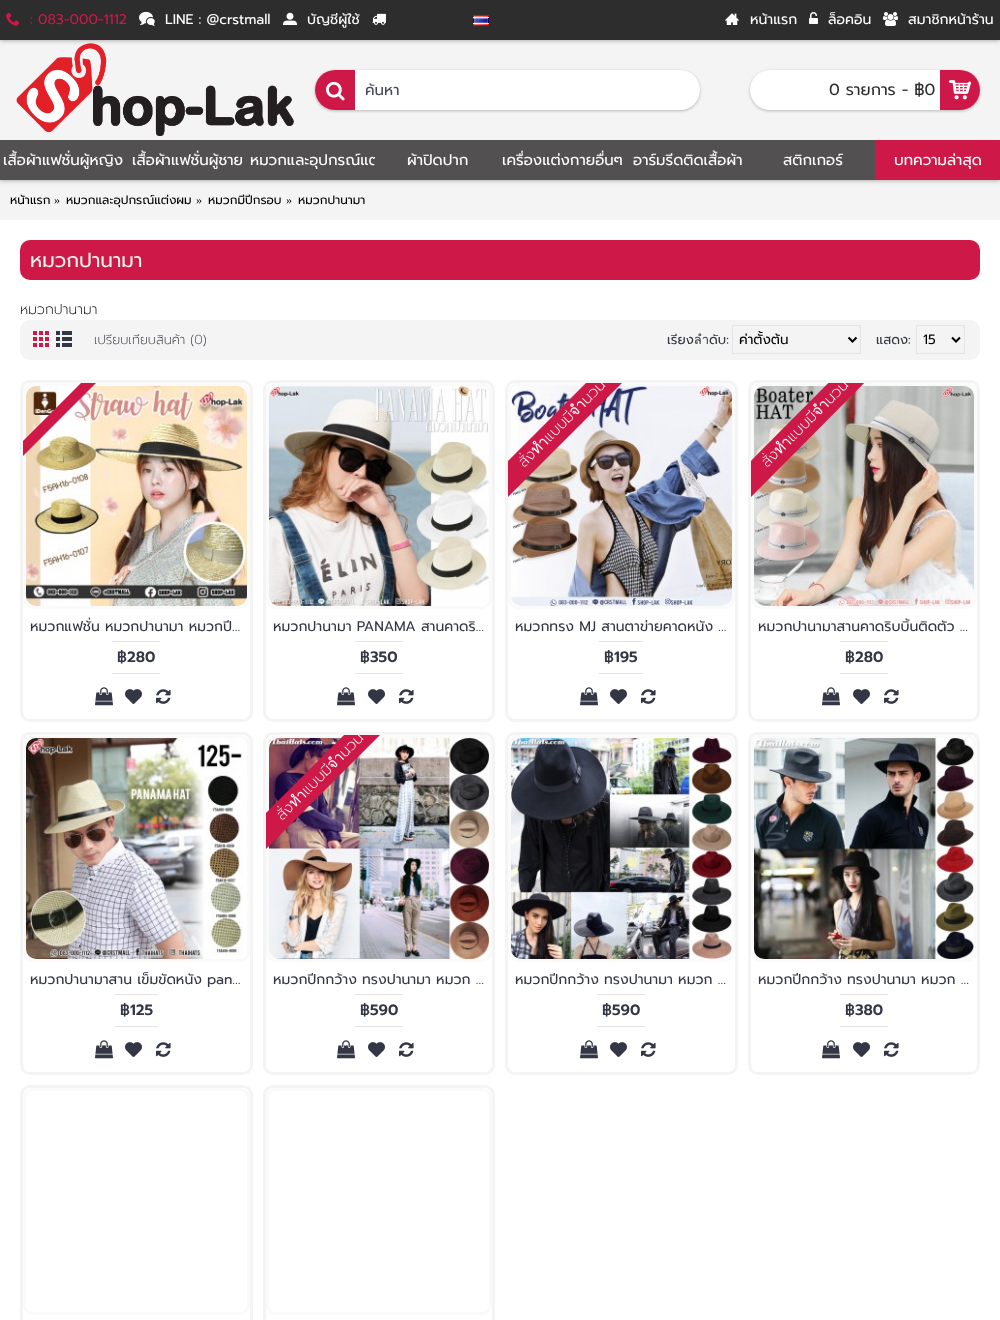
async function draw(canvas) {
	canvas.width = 1000;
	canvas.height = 1320;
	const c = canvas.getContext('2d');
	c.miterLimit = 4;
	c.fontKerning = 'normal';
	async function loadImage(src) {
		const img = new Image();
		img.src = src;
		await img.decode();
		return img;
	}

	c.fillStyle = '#fff';
	c.fillRect(0, 0, 1000, 1320);
	c.fillStyle = '#f4f4f4';
	c.fillRect(0, 180, 1000, 40);
	c.fillStyle = '#00000066';
	c.filter = 'blur(2.5px)';
	c.beginPath();
	c.rect(0, 0, 1000, 180);
	c.fill();
	c.filter = 'none';
	c.fillStyle = '#f4f4f4';
	c.fillRect(0, 40, 1000, 100);
	c.fillStyle = '#00000066';
	c.filter = 'blur(2.5px)';
	c.beginPath();
	c.rect(0, 0, 1000, 40);
	c.fill();
	c.filter = 'none';
	c.fillStyle = '#2d2d2d';
	c.fillRect(0, 0, 1000, 40);
	c.drawImage(await loadImage('img1.png'), 6, 12, 14, 14);
	c.font = '14px Prompt';
	c.fillStyle = '#ce1948';
	c.fillText(': 083-000-1112', 30, 24);
	c.drawImage(await loadImage('img2.png'), 139, 11, 16, 15);
	c.fillStyle = '#fff';
	c.fillText('LINE : @crstmall', 165, 24);
	c.drawImage(await loadImage('img3.png'), 283, 12, 14, 13);
	c.fillText('บัญชีผู้ใช้', 307, 24);
	c.drawImage(await loadImage('img4.png'), 372, 13, 14, 12);
	c.drawImage(await loadImage('img5.png'), 473, 15, 16, 11);
	c.drawImage(await loadImage('img6.png'), 725, 13, 14, 12);
	c.fillText('หน้าแรก', 750, 24);
	c.drawImage(await loadImage('img7.png'), 809, 12, 9, 12);
	c.fillText('ล็อคอิน', 828, 24);
	c.drawImage(await loadImage('img8.png'), 883, 12, 15, 14);
	c.fillText('สมาชิกหน้าร้าน', 908, 24);
	c.drawImage(await loadImage('img9.png'), 16, 43, 278, 93);
	c.fillStyle = '#00000040';
	c.filter = 'blur(1.5px)';
	c.beginPath();
	c.roundRect(315, 71, 385, 40, 20);
	c.fill();
	c.filter = 'none';
	c.fillStyle = '#fff';
	c.beginPath();
	c.roundRect(315, 70, 385, 40, 20);
	c.fill();
	c.fillStyle = '#ce1948';
	c.beginPath();
	c.roundRect(315, 70, 40, 40, [20, 0, 0, 20]);
	c.fill();
	c.drawImage(await loadImage('img10.png'), 326, 81, 19, 20);
	c.save();
	c.beginPath();
	c.rect(365, 79, 335, 22);
	c.clip();
	c.font = '15px Prompt';
	c.fillStyle = '#44495a';
	c.fillText('ค้นหา', 365, 95);
	c.restore();
	c.fillStyle = '#00000040';
	c.filter = 'blur(1.5px)';
	c.beginPath();
	c.roundRect(750, 71, 230, 40, 20);
	c.fill();
	c.filter = 'none';
	c.fillStyle = '#fff';
	c.beginPath();
	c.roundRect(750, 70, 230, 40, 20);
	c.fill();
	c.font = '16px Prompt';
	c.fillStyle = '#2d2d2d';
	c.fillText('0 รายการ - ฿0', 829, 95);
	c.fillStyle = '#ce1849';
	c.beginPath();
	c.roundRect(940, 70, 40, 40, [0, 20, 20, 0]);
	c.fill();
	c.drawImage(await loadImage('img11.png'), 949, 80, 22, 20);
	c.fillStyle = '#525050';
	c.fillRect(0, 140, 875, 40);
	c.font = '15px Prompt';
	c.fillStyle = '#fff';
	c.fillText('เสื้อผ้าแฟชั่นผู้หญิง', 3, 165);
	c.fillText('เสื้อผ้าแฟชั่นผู้ชาย', 132, 165);
	c.save();
	c.beginPath();
	c.rect(250, 140, 125, 40);
	c.clip();
	c.fillText('หมวกและอุปกรณ์แต่', 250, 165);
	c.restore();
	for (const [text, x, y] of [
		['ผ้าปิดปาก', 407, 165],
		['เครื่องแต่งกายอื่นๆ', 502, 165],
		['อาร์มรีดติดเสื้อผ้า', 633, 165],
		['สติกเกอร์', 783, 165],
	]) {
		c.fillText(text, x, y);
	}
	c.fillStyle = '#ce1948';
	c.fillRect(875, 140, 125, 40);
	c.fillStyle = '#fff';
	c.fillText('บทความล่าสุด', 894, 165);
	c.font = '12px Prompt';
	c.fillStyle = '#000';
	c.fillText('หน้าแรก', 10, 204);
	c.font = '12px Liberation Serif';
	c.fillText('»', 54, 204);
	c.font = '12px Prompt';
	c.fillText('หมวกและอุปกรณ์แต่งผม', 66, 204);
	c.font = '12px Liberation Serif';
	c.fillText('»', 196, 204);
	c.font = '12px Prompt';
	c.fillText('หมวกมีปีกรอบ', 208, 204);
	c.font = '12px Liberation Serif';
	c.fillText('»', 286, 204);
	c.font = '12px Prompt';
	c.fillText('หมวกปานามา', 298, 204);
	c.fillStyle = '#ce1948';
	c.beginPath();
	c.roundRect(20, 240, 960, 40, 10);
	c.fill();
	c.font = '20px Prompt';
	c.fillStyle = '#eef1ea';
	c.fillText('หมวกปานามา', 30, 267);
	c.font = '200 14px Prompt';
	c.fillStyle = '#000';
	c.fillText('หมวกปานามา', 20, 314);
	c.fillStyle = '#f4f4f4';
	c.beginPath();
	c.roundRect(20, 320, 960, 40, 10);
	c.fill();
	c.drawImage(await loadImage('img12.png'), 33, 331, 16, 16);
	c.drawImage(await loadImage('img13.png'), 56, 331, 16, 16);
	c.font = '200 13px Prompt';
	c.fillStyle = '#333745';
	c.fillText('เปรียบเทียบสินค้า (0)', 94, 344);
	c.save();
	c.beginPath();
	c.rect(667, 320, 199, 40);
	c.clip();
	c.font = '13px Prompt';
	c.fillText('เรียงลำดับ:', 667, 344);
	c.restore();
	c.strokeStyle = '#e4e4e4';
	c.strokeRect(732.5, 325.5, 128, 28);
	c.beginPath();
	c.moveTo(848.5, 337.5);
	c.lineTo(852.5, 341.5);
	c.lineTo(856.5, 337.5);
	c.strokeStyle = '#000';
	c.lineWidth = 2;
	c.stroke();
	c.save();
	c.beginPath();
	c.rect(739, 328, 103, 23);
	c.clip();
	c.font = '13.5px Prompt';
	c.fillStyle = '#000';
	c.fillText('ค่าตั้งต้น', 739, 344);
	c.restore();
	c.font = '13px Prompt';
	c.fillText('แสดง:', 876, 344);
	c.strokeStyle = '#e4e4e4';
	c.lineWidth = 1;
	c.strokeRect(916.5, 325.5, 48, 28);
	c.beginPath();
	c.moveTo(952, 337.5);
	c.lineTo(956, 341.5);
	c.lineTo(960, 337.5);
	c.strokeStyle = '#000';
	c.lineWidth = 2;
	c.stroke();
	c.font = '13.5px Prompt';
	c.fillStyle = '#000';
	c.fillText('15', 923, 344);
	c.beginPath();
	c.roundRect(21.5, 381.5, 230, 339, 8.5);
	c.strokeStyle = '#f4f4f4';
	c.lineWidth = 3;
	c.stroke();
	c.beginPath();
	c.roundRect(24.5, 384.5, 224, 223, 8.5);
	c.strokeStyle = '#fafafa';
	c.stroke();
	c.drawImage(await loadImage('img14.png'), 26, 386, 221, 220);
	c.save();
	c.beginPath();
	c.rect(23, 383, 227, 226);
	c.clip();
	c.fillStyle = '#ce1948';
	c.beginPath();
	c.moveTo(-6, 470);
	c.lineTo(136, 328);
	c.lineTo(143, 336);
	c.lineTo(2, 477);
	c.closePath();
	c.fill();
	c.restore();
	c.font = '14px Prompt';
	c.fillStyle = '#333745';
	c.fillText('หมวกแฟชั่น หมวกปานามา หมวกปี…', 30, 631);
	c.fillStyle = '#e4e4e4';
	c.fillRect(112, 641, 48, 1);
	c.fillRect(112, 673, 48, 1);
	c.font = '600 15px Prompt';
	c.fillStyle = '#333745';
	c.fillText('฿280', 117, 662);
	c.drawImage(await loadImage('img15.png'), 95, 687, 18, 19);
	c.drawImage(await loadImage('img16.png'), 125, 689, 17, 15);
	c.drawImage(await loadImage('img17.png'), 156, 689, 15, 15);
	c.beginPath();
	c.roundRect(264.5, 381.5, 229, 339, 8.5);
	c.strokeStyle = '#f4f4f4';
	c.stroke();
	c.beginPath();
	c.roundRect(267.5, 384.5, 223, 223, 8.5);
	c.strokeStyle = '#fafafa';
	c.stroke();
	c.drawImage(await loadImage('img18.png'), 269, 386, 220, 220);
	c.font = '14px Prompt';
	c.fillText('หมวกปานามา PANAMA สานคาดริ…', 273, 631);
	c.fillStyle = '#e4e4e4';
	c.fillRect(355, 641, 48, 1);
	c.fillRect(355, 673, 48, 1);
	c.font = '600 15px Prompt';
	c.fillStyle = '#333745';
	c.fillText('฿350', 360, 662);
	c.drawImage(await loadImage('img15.png'), 337, 687, 18, 19);
	c.drawImage(await loadImage('img16.png'), 368, 689, 17, 15);
	c.drawImage(await loadImage('img17.png'), 399, 689, 15, 15);
	c.beginPath();
	c.roundRect(506.5, 381.5, 230, 339, 8.5);
	c.strokeStyle = '#f4f4f4';
	c.stroke();
	c.beginPath();
	c.roundRect(509.5, 384.5, 224, 223, 8.5);
	c.strokeStyle = '#fafafa';
	c.stroke();
	c.drawImage(await loadImage('img19.png'), 511, 386, 221, 220);
	c.save();
	c.beginPath();
	c.rect(508, 383, 227, 226);
	c.clip();
	c.fillStyle = '#ce1948';
	c.beginPath();
	c.moveTo(470, 499);
	c.lineTo(634, 335);
	c.lineTo(652, 353);
	c.lineTo(488, 517);
	c.closePath();
	c.fill();
	c.restore();
	c.font = '200 15px Prompt';
	c.fillStyle = '#fff';
	c.save();
	c.translate(524, 468);
	c.rotate(-45 * Math.PI / 180);
	c.fillText('สั่งทำแบบมีจำนวน', 0, 0);
	c.restore();
	c.font = '14px Prompt';
	c.fillStyle = '#333745';
	c.fillText('หมวกทรง MJ สานตาข่ายคาดหนัง …', 515, 631);
	c.fillStyle = '#e4e4e4';
	c.fillRect(599, 641, 44, 1);
	c.fillRect(599, 673, 44, 1);
	c.font = '600 15px Prompt';
	c.fillStyle = '#333745';
	c.fillText('฿195', 604, 662);
	c.drawImage(await loadImage('img15.png'), 580, 687, 18, 19);
	c.drawImage(await loadImage('img16.png'), 610, 689, 17, 15);
	c.drawImage(await loadImage('img17.png'), 641, 689, 15, 15);
	c.beginPath();
	c.roundRect(749.5, 381.5, 229, 339, 8.5);
	c.strokeStyle = '#f4f4f4';
	c.stroke();
	c.beginPath();
	c.roundRect(752.5, 384.5, 223, 223, 8.5);
	c.strokeStyle = '#fafafa';
	c.stroke();
	c.drawImage(await loadImage('img20.png'), 754, 386, 220, 220);
	c.save();
	c.beginPath();
	c.rect(751, 383, 226, 226);
	c.clip();
	c.fillStyle = '#ce1948';
	c.beginPath();
	c.moveTo(713, 499);
	c.lineTo(876, 335);
	c.lineTo(894, 353);
	c.lineTo(731, 517);
	c.closePath();
	c.fill();
	c.restore();
	c.font = '200 15px Prompt';
	c.fillStyle = '#fff';
	c.save();
	c.translate(767, 468);
	c.rotate(-45 * Math.PI / 180);
	c.fillText('สั่งทำแบบมีจำนวน', 0, 0);
	c.restore();
	c.font = '14px Prompt';
	c.fillStyle = '#333745';
	c.fillText('หมวกปานามาสานคาดริบบิ้นติดตัว …', 758, 631);
	c.fillStyle = '#e4e4e4';
	c.fillRect(840, 641, 48, 1);
	c.fillRect(840, 673, 48, 1);
	c.font = '600 15px Prompt';
	c.fillStyle = '#333745';
	c.fillText('฿280', 845, 662);
	c.drawImage(await loadImage('img15.png'), 822, 687, 18, 19);
	c.drawImage(await loadImage('img16.png'), 853, 689, 17, 15);
	c.drawImage(await loadImage('img17.png'), 884, 689, 15, 15);
	c.beginPath();
	c.roundRect(21.5, 733.5, 230, 340, 8.5);
	c.strokeStyle = '#f4f4f4';
	c.stroke();
	c.beginPath();
	c.roundRect(24.5, 736.5, 224, 224, 8.5);
	c.strokeStyle = '#fafafa';
	c.stroke();
	c.drawImage(await loadImage('img21.png'), 26, 738, 217, 221);
	c.font = '14px Prompt';
	c.fillText('หมวกปานามาสาน เข็มขัดหนัง pan…', 30, 984);
	c.fillStyle = '#e4e4e4';
	c.fillRect(115, 994, 43, 1);
	c.fillRect(115, 1026, 43, 1);
	c.font = '600 15px Prompt';
	c.fillStyle = '#333745';
	c.fillText('฿125', 120, 1015);
	c.drawImage(await loadImage('img15.png'), 95, 1040, 18, 19);
	c.drawImage(await loadImage('img16.png'), 125, 1042, 17, 15);
	c.drawImage(await loadImage('img17.png'), 156, 1042, 15, 15);
	c.beginPath();
	c.roundRect(264.5, 733.5, 229, 340, 8.5);
	c.strokeStyle = '#f4f4f4';
	c.stroke();
	c.beginPath();
	c.roundRect(267.5, 736.5, 223, 224, 8.5);
	c.strokeStyle = '#fafafa';
	c.stroke();
	c.drawImage(await loadImage('img22.png'), 269, 738, 220, 221);
	c.save();
	c.beginPath();
	c.rect(266, 735, 226, 227);
	c.clip();
	c.fillStyle = '#ce1948';
	c.beginPath();
	c.moveTo(228, 851);
	c.lineTo(391, 688);
	c.lineTo(409, 706);
	c.lineTo(246, 869);
	c.closePath();
	c.fill();
	c.restore();
	c.font = '200 15px Prompt';
	c.fillStyle = '#fff';
	c.save();
	c.translate(282, 821);
	c.rotate(-45 * Math.PI / 180);
	c.fillText('สั่งทำแบบมีจำนวน', 0, 0);
	c.restore();
	c.font = '14px Prompt';
	c.fillStyle = '#333745';
	c.fillText('หมวกปีกกว้าง ทรงปานามา หมวก …', 273, 984);
	c.fillStyle = '#e4e4e4';
	c.fillRect(355, 994, 48, 1);
	c.fillRect(355, 1026, 48, 1);
	c.font = '600 15px Prompt';
	c.fillStyle = '#333745';
	c.fillText('฿590', 360, 1015);
	c.drawImage(await loadImage('img15.png'), 337, 1040, 18, 19);
	c.drawImage(await loadImage('img16.png'), 368, 1042, 17, 15);
	c.drawImage(await loadImage('img17.png'), 399, 1042, 15, 15);
	c.beginPath();
	c.roundRect(506.5, 733.5, 230, 340, 8.5);
	c.strokeStyle = '#f4f4f4';
	c.stroke();
	c.beginPath();
	c.roundRect(509.5, 736.5, 224, 224, 8.5);
	c.strokeStyle = '#fafafa';
	c.stroke();
	c.drawImage(await loadImage('img23.png'), 511, 738, 221, 221);
	c.font = '14px Prompt';
	c.fillText('หมวกปีกกว้าง ทรงปานามา หมวก …', 515, 984);
	c.fillStyle = '#e4e4e4';
	c.fillRect(597, 994, 48, 1);
	c.fillRect(597, 1026, 48, 1);
	c.font = '600 15px Prompt';
	c.fillStyle = '#333745';
	c.fillText('฿590', 602, 1015);
	c.drawImage(await loadImage('img15.png'), 580, 1040, 18, 19);
	c.drawImage(await loadImage('img16.png'), 610, 1042, 17, 15);
	c.drawImage(await loadImage('img17.png'), 641, 1042, 15, 15);
	c.beginPath();
	c.roundRect(749.5, 733.5, 229, 340, 8.5);
	c.strokeStyle = '#f4f4f4';
	c.stroke();
	c.beginPath();
	c.roundRect(752.5, 736.5, 223, 224, 8.5);
	c.strokeStyle = '#fafafa';
	c.stroke();
	c.drawImage(await loadImage('img24.png'), 754, 738, 220, 221);
	c.font = '14px Prompt';
	c.fillText('หมวกปีกกว้าง ทรงปานามา หมวก …', 758, 984);
	c.fillStyle = '#e4e4e4';
	c.fillRect(840, 994, 48, 1);
	c.fillRect(840, 1026, 48, 1);
	c.font = '600 15px Prompt';
	c.fillStyle = '#333745';
	c.fillText('฿380', 845, 1015);
	c.drawImage(await loadImage('img15.png'), 822, 1040, 18, 19);
	c.drawImage(await loadImage('img16.png'), 853, 1042, 17, 15);
	c.drawImage(await loadImage('img17.png'), 884, 1042, 15, 15);
	c.beginPath();
	c.roundRect(21.5, 1086.5, 230, 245, 8.5);
	c.strokeStyle = '#f4f4f4';
	c.stroke();
	c.beginPath();
	c.roundRect(24.5, 1089.5, 224, 224, 8.5);
	c.strokeStyle = '#fafafa';
	c.stroke();
	c.beginPath();
	c.roundRect(264.5, 1086.5, 229, 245, 8.5);
	c.strokeStyle = '#f4f4f4';
	c.stroke();
	c.beginPath();
	c.roundRect(267.5, 1089.5, 223, 224, 8.5);
	c.strokeStyle = '#fafafa';
	c.stroke();
}

draw(document.querySelector('canvas'));
